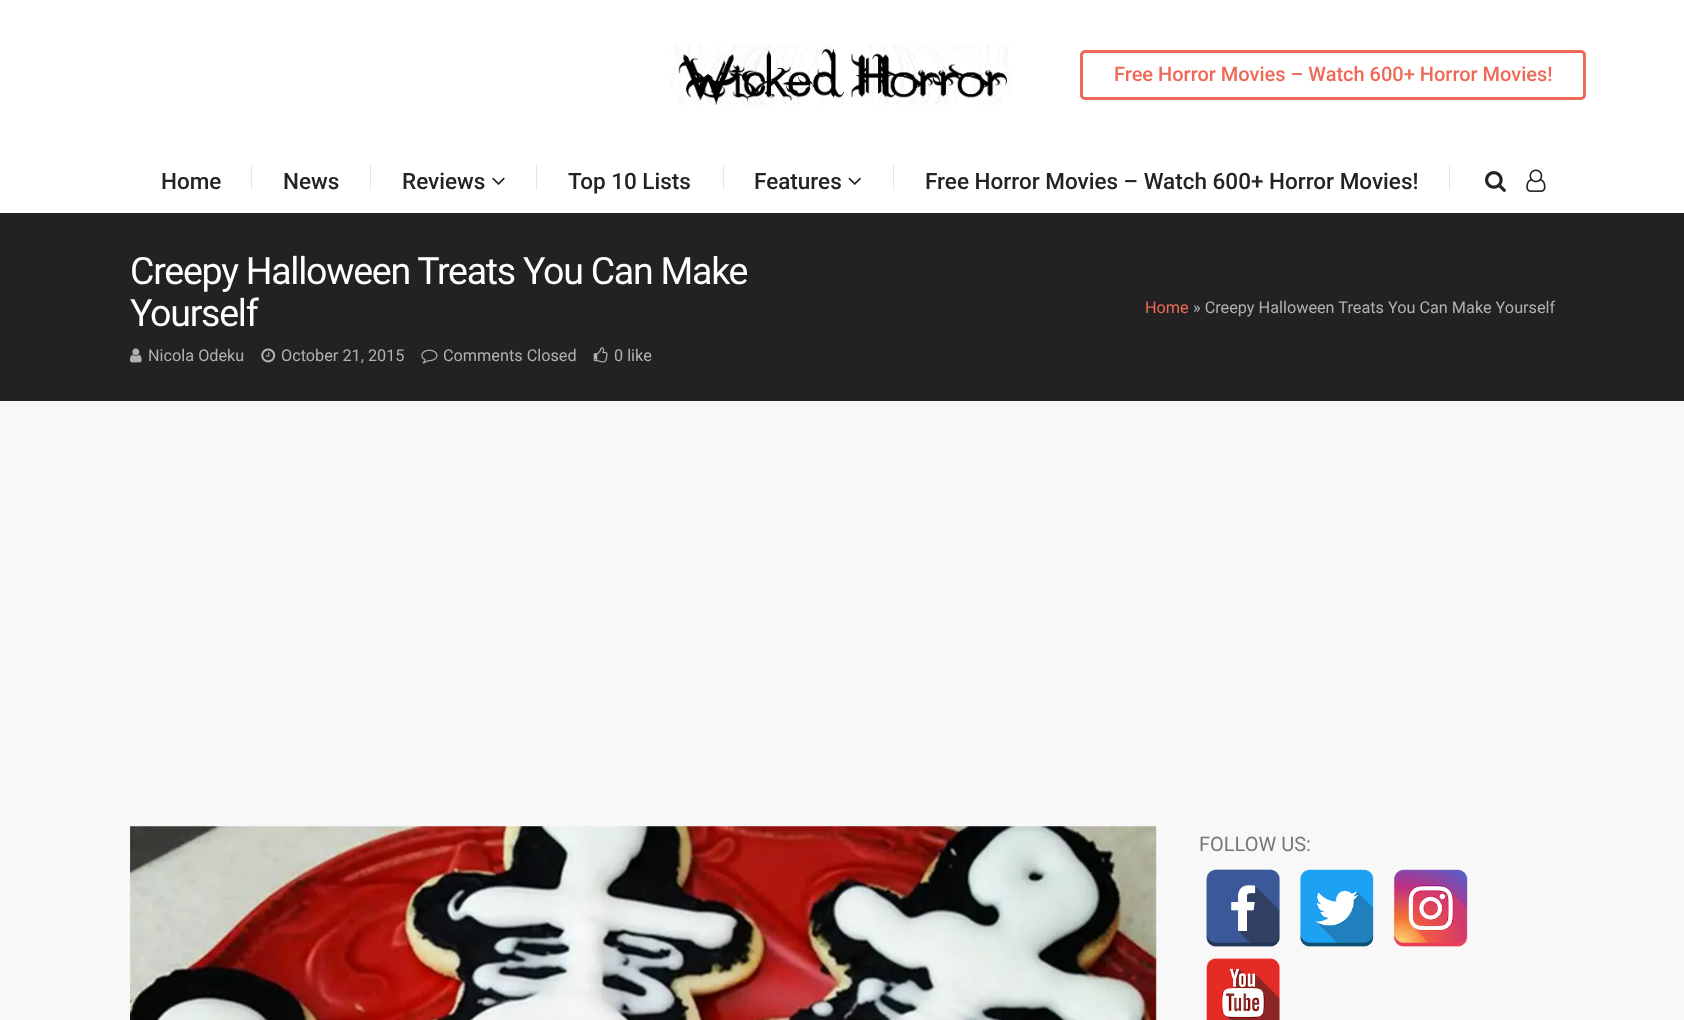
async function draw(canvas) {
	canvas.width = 1684;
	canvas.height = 1020;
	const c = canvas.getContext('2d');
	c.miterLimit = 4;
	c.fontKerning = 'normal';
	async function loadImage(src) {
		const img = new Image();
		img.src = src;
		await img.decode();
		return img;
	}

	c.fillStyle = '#f8f8f8';
	c.fillRect(0, 0, 1684, 1020);
	c.fillStyle = '#fff';
	c.fillRect(0, 0, 1684, 213);
	c.drawImage(await loadImage('img1.png'), 670, 45, 343, 60);
	c.beginPath();
	c.roundRect(1081.5, 51.5, 503, 47, 3.5);
	c.strokeStyle = '#ee6a56';
	c.lineWidth = 3;
	c.stroke();
	c.font = '500 20px Roboto';
	c.fillStyle = '#ee6a56';
	c.fillText('Free Horror Movies – Watch 600+ Horror Movies!', 1114, 81);
	c.font = '500 22.5px Roboto';
	c.fillStyle = '#232323';
	c.fillText('Home', 161, 189);
	c.fillStyle = '#e6e6e6';
	c.fillRect(251, 165, 1, 25);
	c.fillStyle = '#232323';
	c.fillText('News', 283, 189);
	c.fillStyle = '#e6e6e6';
	c.fillRect(370, 165, 1, 25);
	c.fillStyle = '#232323';
	c.fillText('Reviews', 402, 189);
	c.drawImage(await loadImage('img2.png'), 492, 177, 13, 8);
	c.fillStyle = '#e6e6e6';
	c.fillRect(536, 165, 1, 25);
	c.fillStyle = '#232323';
	c.fillText('Top 10 Lists', 568, 189);
	c.fillStyle = '#e6e6e6';
	c.fillRect(723, 165, 1, 25);
	c.fillStyle = '#232323';
	c.fillText('Features', 754, 189);
	c.drawImage(await loadImage('img3.png'), 848, 177, 13, 8);
	c.fillStyle = '#e6e6e6';
	c.fillRect(893, 165, 1, 25);
	c.fillStyle = '#232323';
	c.fillText('Free Horror Movies – Watch 600+ Horror Movies!', 925, 189);
	c.fillStyle = '#e6e6e6';
	c.fillRect(1449, 165, 1, 25);
	c.drawImage(await loadImage('img4.png'), 1485, 171, 21, 21);
	c.drawImage(await loadImage('img5.png'), 1526, 169, 20, 23);
	c.fillStyle = '#222';
	c.fillRect(0, 213, 1684, 188);
	c.letterSpacing = '-1.25px';
	c.font = '37.5px Roboto';
	c.fillStyle = '#fff';
	c.fillText('Creepy Halloween Treats You Can Make', 130, 284);
	c.fillText('Yourself', 130, 326);
	c.drawImage(await loadImage('img6.png'), 130, 348, 12, 15);
	c.letterSpacing = '0px';
	c.font = '16.25px Roboto';
	c.fillStyle = '#b1b1b1';
	c.fillText('Nicola Odeku', 148, 361);
	c.drawImage(await loadImage('img7.png'), 261, 348, 15, 15);
	c.fillText('October 21, 2015', 281, 361);
	c.drawImage(await loadImage('img8.png'), 421, 349, 17, 15);
	c.fillText('Comments Closed', 443, 361);
	c.drawImage(await loadImage('img9.png'), 593, 347, 15, 16);
	c.fillText('0 like', 614, 361);
	c.fillStyle = '#ee6a56';
	c.fillText('Home', 1145, 313);
	c.fillStyle = '#b1b1b1';
	c.fillText('» Creepy Halloween Treats You Can Make Yourself', 1193, 313);
	c.drawImage(await loadImage('img10.png'), 130, 826, 1027, 194);
	c.font = '20px Roboto';
	c.fillStyle = '#777';
	c.fillText('FOLLOW US:', 1199, 851);
	c.drawImage(await loadImage('img11.png'), 1206, 869, 74, 78);
	c.drawImage(await loadImage('img12.png'), 1300, 869, 74, 78);
	c.drawImage(await loadImage('img13.png'), 1393, 869, 75, 78);
	c.drawImage(await loadImage('img14.png'), 1206, 958, 74, 62);
}

draw(document.querySelector('canvas'));
